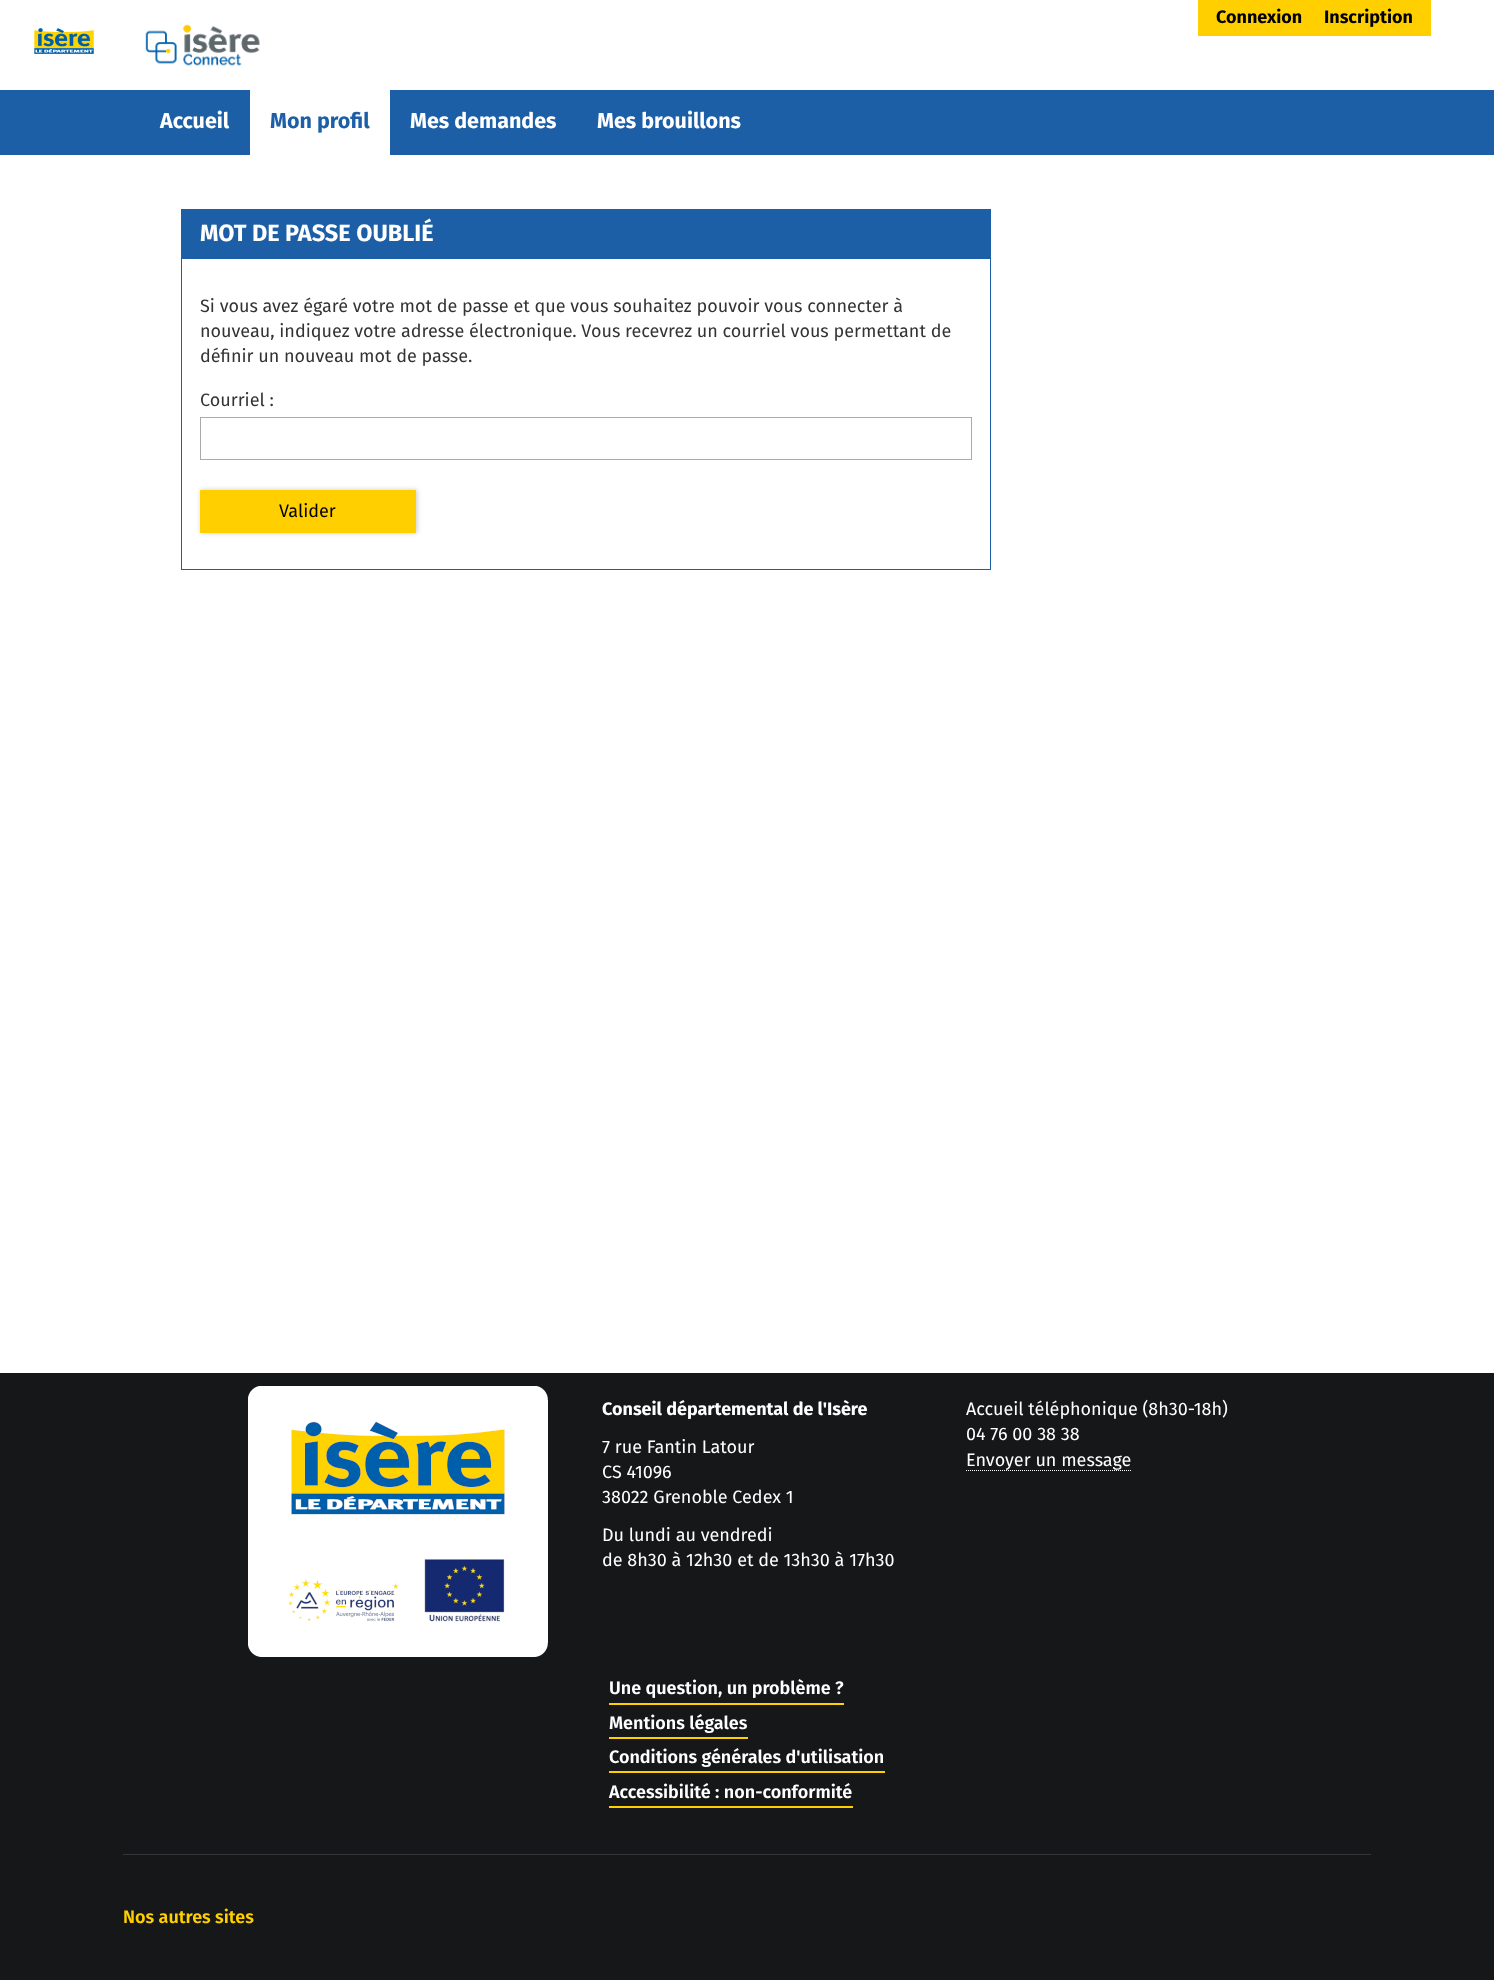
async function draw(canvas) {
	canvas.width = 1494;
	canvas.height = 1980;
	const c = canvas.getContext('2d');
	c.miterLimit = 4;
	c.fontKerning = 'normal';
	async function loadImage(src) {
		const img = new Image();
		img.src = src;
		await img.decode();
		return img;
	}

	c.fillStyle = '#fff';
	c.fillRect(0, 0, 1494, 1980);
	c.drawImage(await loadImage('img1.png'), 34, 28, 60, 26);
	c.fillStyle = '#ffcf00';
	c.fillRect(1198, 0, 233, 36);
	c.font = 'bold 18px Fira Sans';
	c.fillStyle = '#000';
	c.fillText('Connexion', 1216, 23);
	c.fillText('Inscription', 1324, 23);
	c.drawImage(await loadImage('img2.png'), 145, 24, 115, 42);
	c.fillStyle = '#1c5fa6';
	c.fillRect(0, 90, 1494, 65);
	c.font = 'bold 21.5px Fira Sans';
	c.fillStyle = '#fff';
	c.fillText('Accueil', 160, 128);
	c.fillRect(250, 90, 140, 65);
	c.fillStyle = '#1c5fa6';
	c.fillText('Mon profil', 270, 128);
	c.fillStyle = '#fff';
	c.fillText('Mes demandes', 410, 128);
	c.fillText('Mes brouillons', 597, 128);
	c.strokeStyle = '#1c5fa6';
	c.strokeRect(181.5, 209.5, 809, 360);
	c.fillStyle = '#1c5fa6';
	c.fillRect(182, 210, 808, 49);
	c.font = 'bold 23.5px Fira Sans';
	c.fillStyle = '#fff';
	c.fillText('MOT DE PASSE OUBLIÉ', 200, 241);
	c.font = '18px Fira Sans';
	c.fillStyle = '#333';
	for (const [text, x, y] of [
		['Si vous avez égaré votre mot de passe et que vous souhaitez pouvoir vous connecter à', 200, 312],
		['nouveau, indiquez votre adresse électronique. Vous recevrez un courriel vous permettant de', 200, 337],
		['définir un nouveau mot de passe.', 200, 362],
		['Courriel :', 200, 406],
	]) {
		c.fillText(text, x, y);
	}
	c.strokeStyle = '#aaa';
	c.strokeRect(200.5, 417.5, 771, 42);
	c.fillStyle = '#00000036';
	c.filter = 'blur(2.5px)';
	c.beginPath();
	c.rect(201, 490, 216, 43);
	c.fill();
	c.filter = 'none';
	c.fillStyle = '#ffcf00';
	c.fillRect(200, 490, 216, 43);
	c.fillStyle = '#000';
	c.fillText('Valider', 279, 517);
	c.fillStyle = '#151718';
	c.fillRect(0, 1373, 1494, 607);
	c.drawImage(await loadImage('img3.png'), 248, 1386, 300, 271);
	c.font = 'bold 18px Fira Sans';
	c.fillStyle = '#fff';
	c.fillText('Conseil départemental de l\'Isère', 602, 1415);
	c.font = '18px Fira Sans';
	for (const [text, x, y] of [
		['7 rue Fantin Latour', 602, 1453],
		['CS 41096', 602, 1478],
		['38022 Grenoble Cedex 1', 602, 1503],
		['Du lundi au vendredi', 602, 1541],
		['de 8h30 à 12h30 et de 13h30 à 17h30', 602, 1566],
		['Accueil téléphonique (8h30-18h)', 966, 1415],
		['04 76 00 38 38', 966, 1440],
		['Envoyer un message', 966, 1466],
	]) {
		c.fillText(text, x, y);
	}
	c.beginPath();
	c.moveTo(966, 1470.5);
	c.lineTo(1132, 1470.5);
	c.strokeStyle = '#fff';
	c.setLineDash([1, 1]);
	c.stroke();
	c.fillStyle = '#ffcf00';
	c.fillRect(609, 1703, 235, 2);
	c.font = '600 18px "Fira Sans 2"';
	c.fillStyle = '#fff';
	c.fillText('Une question, un problème ?', 609, 1694);
	c.fillStyle = '#ffcf00';
	c.fillRect(609, 1737, 139, 2);
	c.fillStyle = '#fff';
	c.fillText('Mentions légales', 609, 1729);
	c.fillStyle = '#ffcf00';
	c.fillRect(609, 1771, 276, 2);
	c.fillStyle = '#fff';
	c.fillText('Conditions générales d\'utilisation', 609, 1763);
	c.fillStyle = '#ffcf00';
	c.fillRect(609, 1806, 244, 2);
	c.fillStyle = '#fff';
	c.fillText('Accessibilité : non-conformité', 609, 1798);
	c.fillStyle = '#333739';
	c.fillRect(123, 1854, 1248, 1);
	c.font = '600 18px Fira Sans';
	c.fillStyle = '#ffcf00';
	c.fillText('Nos autres sites', 123, 1923);
}

draw(document.querySelector('canvas'));
